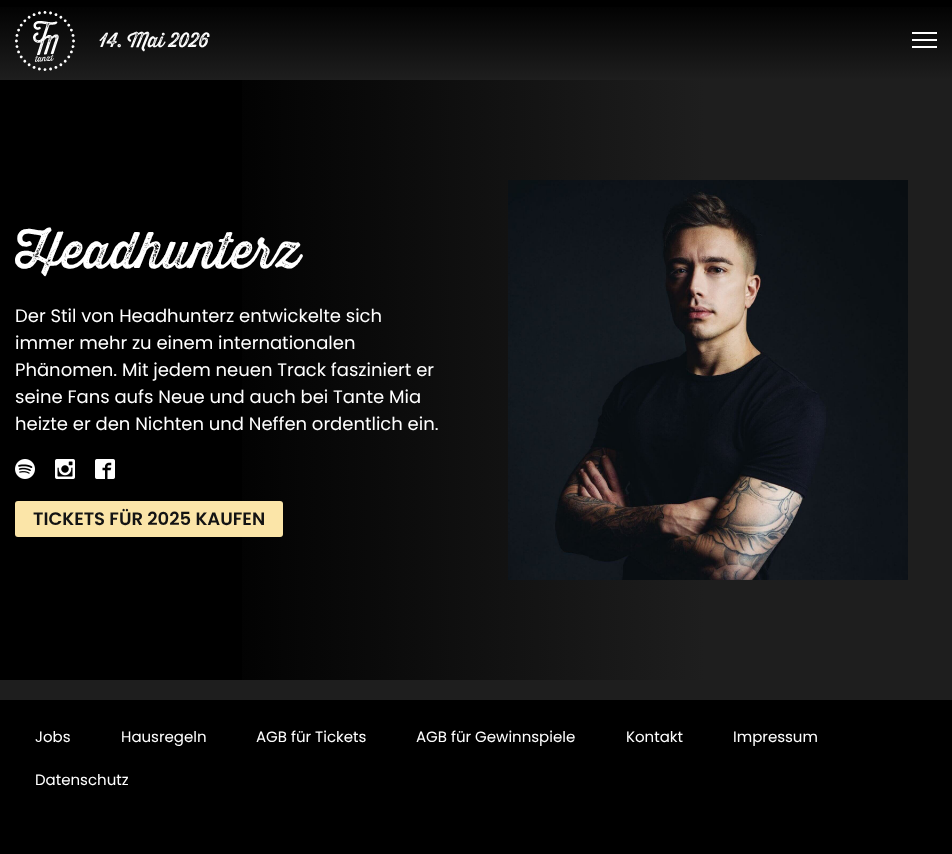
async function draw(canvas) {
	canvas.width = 952;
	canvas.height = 854;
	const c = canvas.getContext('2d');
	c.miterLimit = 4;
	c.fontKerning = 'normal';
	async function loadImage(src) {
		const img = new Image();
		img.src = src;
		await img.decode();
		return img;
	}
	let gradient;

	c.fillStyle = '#000';
	c.fillRect(0, 0, 952, 854);
	c.fillStyle = '#1e1e1e';
	c.fillRect(0, 680, 952, 20);
	gradient = c.createLinearGradient(476, 0, 476, 80);
	gradient.addColorStop(0, '#000');
	gradient.addColorStop(1, '#1e1e1e');
	c.fillStyle = gradient;
	c.fillRect(0, 7, 952, 73);
	c.drawImage(await loadImage('img1.png'), 15, 11, 60, 60);
	c.font = '20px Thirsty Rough';
	c.fillStyle = '#fff';
	c.fillText('14. Mai 2026', 99, 47);
	for (const [x, y, w, h, color] of [
		[912, 32, 25, 2, '#fff'],
		[912, 39, 25, 2, '#fff'],
		[912, 46, 25, 2, '#fff'],
	]) {
		c.fillStyle = color;
		c.fillRect(x, y, w, h);
	}
	gradient = c.createLinearGradient(952, 380, 0, 380);
	gradient.addColorStop(0.26, '#1e1e1e');
	gradient.addColorStop(0.79, '#000');
	c.fillStyle = gradient;
	c.fillRect(242, 80, 710, 600);
	c.font = '50px Thirsty Rough';
	c.fillStyle = '#fff';
	c.fillText('Headhunterz', 15, 268);
	c.font = '18px Poppins';
	for (const [text, x, y] of [
		['Der Stil von Headhunterz entwickelte sich', 15, 322],
		['immer mehr zu einem internationalen', 15, 349],
		['Phänomen. Mit jedem neuen Track fasziniert er', 15, 376],
		['seine Fans aufs Neue und auch bei Tante Mia', 15, 403],
		['heizte er den Nichten und Neffen ordentlich ein.', 15, 430],
	]) {
		c.fillText(text, x, y);
	}
	c.drawImage(await loadImage('img2.png'), 15, 459, 20, 20);
	c.drawImage(await loadImage('img3.png'), 55, 459, 20, 20);
	c.drawImage(await loadImage('img4.png'), 95, 459, 20, 20);
	c.fillStyle = '#fbe5a8';
	c.beginPath();
	c.roundRect(15, 501, 268, 36, 3);
	c.fill();
	c.font = '600 18px Poppins';
	c.fillStyle = '#131313';
	c.fillText('TICKETS FÜR 2025 KAUFEN', 33, 525);
	c.drawImage(await loadImage('img5.png'), 508, 180, 400, 400);
	c.font = '15px Poppins';
	c.fillStyle = '#fff';
	for (const [text, x, y] of [
		['Jobs', 35, 742],
		['Hausregeln', 121, 742],
		['AGB für Tickets', 256, 742],
		['AGB für Gewinnspiele', 416, 742],
		['Kontakt', 626, 742],
		['Impressum', 733, 742],
		['Datenschutz', 35, 785],
	]) {
		c.fillText(text, x, y);
	}
}

draw(document.querySelector('canvas'));
